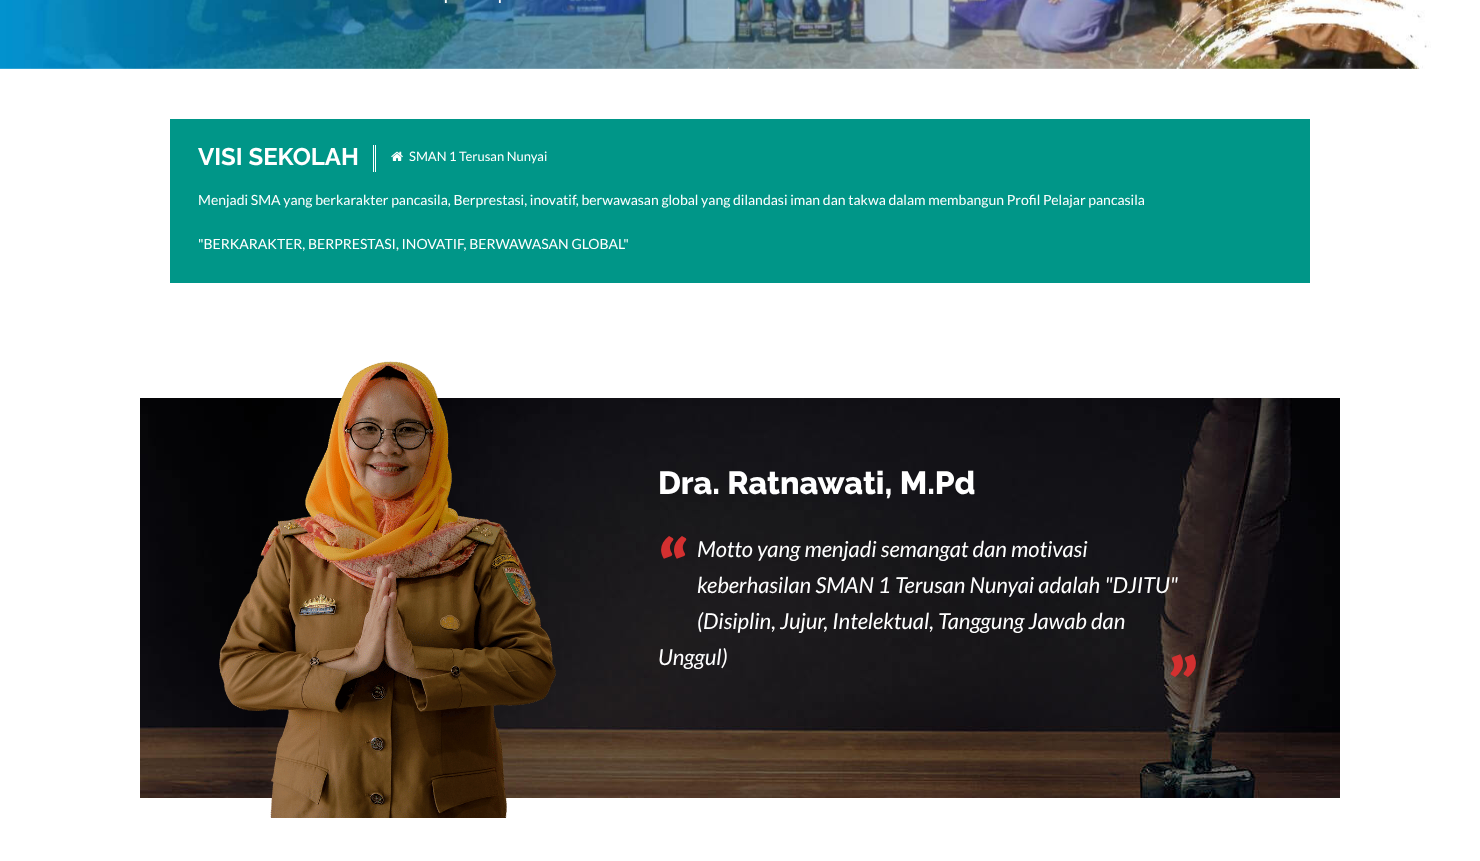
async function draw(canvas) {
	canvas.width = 1480;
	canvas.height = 861;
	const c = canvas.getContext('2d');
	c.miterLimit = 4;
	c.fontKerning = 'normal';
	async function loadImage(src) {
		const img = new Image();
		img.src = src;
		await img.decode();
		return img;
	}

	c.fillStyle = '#fff';
	c.fillRect(0, 0, 1480, 861);
	c.drawImage(await loadImage('img1.png'), 0, 0, 1431, 69);
	c.font = '30px Raleway';
	c.fillText('.', 443, 3);
	c.fillText('.', 497, 3);
	c.drawImage(await loadImage('img2.png'), 727, 67, 3, 2);
	c.fillStyle = '#009688';
	c.fillRect(170, 119, 1140, 164);
	c.font = 'bold 24px Raleway';
	c.fillStyle = '#fff';
	c.fillText('VISI SEKOLAH', 198, 165);
	c.fillRect(373, 145, 1, 27);
	c.fillRect(375, 145, 1, 27);
	c.drawImage(await loadImage('img3.png'), 391, 151, 12, 10);
	c.font = '13px Lato';
	c.fillText('SMAN 1 Terusan Nunyai', 409, 161);
	c.font = '14px Lato';
	c.fillText('Menjadi SMA yang berkarakter pancasila, Berprestasi, inovatif, berwawasan global yang dilandasi iman dan takwa dalam membangun Profil Pelajar pancasila', 198, 205);
	c.fillText('"BERKARAKTER, BERPRESTASI, INOVATIF, BERWAWASAN GLOBAL"', 198, 249);
	c.drawImage(await loadImage('img4.png'), 140, 398, 1200, 400);
	c.drawImage(await loadImage('img5.png'), 219, 361, 337, 457);
	c.font = '800 32px Raleway';
	c.fillText('Dra. Ratnawati, M.Pd', 658, 494);
	c.font = '900 72px Lato';
	c.fillStyle = '#d33030';
	c.fillText('“', 658, 593);
	c.font = 'italic 22px Lato';
	c.fillStyle = '#fff';
	for (const [text, x, y] of [
		['Motto yang menjadi semangat dan motivasi', 697, 557],
		['keberhasilan SMAN 1 Terusan Nunyai adalah "DJITU"', 697, 593],
		['(Disiplin, Jujur, Intelektual, Tanggung Jawab dan', 697, 629],
		['Unggul)', 658, 665],
	]) {
		c.fillText(text, x, y);
	}
	c.font = '900 72px Lato';
	c.fillStyle = '#d33030';
	c.fillText('”', 1168, 710);
}

draw(document.querySelector('canvas'));
